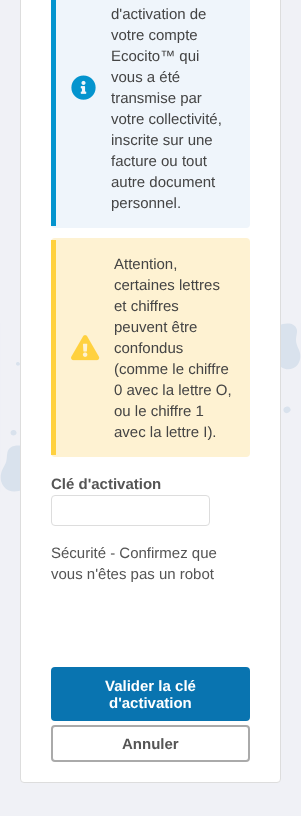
async function draw(canvas) {
	canvas.width = 301;
	canvas.height = 816;
	const c = canvas.getContext('2d');
	c.miterLimit = 4;
	c.fontKerning = 'normal';
	async function loadImage(src) {
		const img = new Image();
		img.src = src;
		await img.decode();
		return img;
	}

	c.fillStyle = '#f0f1f6';
	c.fillRect(0, 0, 301, 816);
	c.drawImage(await loadImage('img1.png'), 0, 323, 301, 169);
	c.fillStyle = '#fff';
	c.beginPath();
	c.roundRect(20.5, -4.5, 260, 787, 3.5);
	c.fill();
	c.strokeStyle = '#ddd';
	c.stroke();
	c.fillStyle = '#eff5fb';
	c.beginPath();
	c.roundRect(51, -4, 199, 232, 4);
	c.fill();
	c.fillStyle = '#0494ce';
	c.fillRect(51, 0, 5, 226);
	c.font = '15px Liberation Sans';
	c.fillStyle = '#444';
	for (const [text, x, y] of [
		['d\'activation de', 111, 19],
		['votre compte', 111, 40],
		['Ecocito™ qui', 111, 61],
	]) {
		c.fillText(text, x, y);
	}
	c.drawImage(await loadImage('img2.png'), 71, 75, 25, 25);
	for (const [text, x, y] of [
		['vous a été', 111, 82],
		['transmise par', 111, 103],
		['votre collectivité,', 111, 124],
		['inscrite sur une', 111, 145],
		['facture ou tout', 111, 166],
		['autre document', 111, 187],
		['personnel.', 111, 208],
	]) {
		c.fillText(text, x, y);
	}
	c.fillStyle = '#fef2d2';
	c.beginPath();
	c.roundRect(51, 238, 199, 219, 4);
	c.fill();
	c.fillStyle = '#ffd13f';
	c.fillRect(51, 240, 5, 215);
	c.fillStyle = '#444';
	for (const [text, x, y] of [
		['Attention,', 114, 269],
		['certaines lettres', 114, 290],
		['et chiffres', 114, 311],
		['peuvent être', 114, 332],
	]) {
		c.fillText(text, x, y);
	}
	c.drawImage(await loadImage('img3.png'), 71, 335, 29, 26);
	for (const [text, x, y] of [
		['confondus', 114, 353],
		['(comme le chiffre', 114, 374],
		['0 avec la lettre O,', 114, 395],
		['ou le chiffre 1', 114, 416],
		['avec la lettre I).', 114, 437],
	]) {
		c.fillText(text, x, y);
	}
	c.font = 'bold 15px Liberation Sans';
	c.fillStyle = '#555';
	c.fillText('Clé d\'activation', 51, 489);
	c.beginPath();
	c.roundRect(51.5, 495.5, 158, 30, 3.5);
	c.stroke();
	c.font = '15px Liberation Sans';
	c.fillText('Sécurité - Confirmez que', 51, 558);
	c.fillText('vous n\'êtes pas un robot', 51, 579);
	c.fillStyle = '#0974b0';
	c.beginPath();
	c.roundRect(51, 667, 199, 54, 4);
	c.fill();
	c.font = 'bold 15px Liberation Sans';
	c.fillStyle = '#fff';
	c.fillText('Valider la clé', 105, 691);
	c.fillText('d\'activation', 109, 708);
	c.beginPath();
	c.roundRect(52, 726, 197, 35, 3);
	c.strokeStyle = '#aaa';
	c.lineWidth = 2;
	c.stroke();
	c.fillStyle = '#555';
	c.fillText('Annuler', 122, 749);
}

draw(document.querySelector('canvas'));
